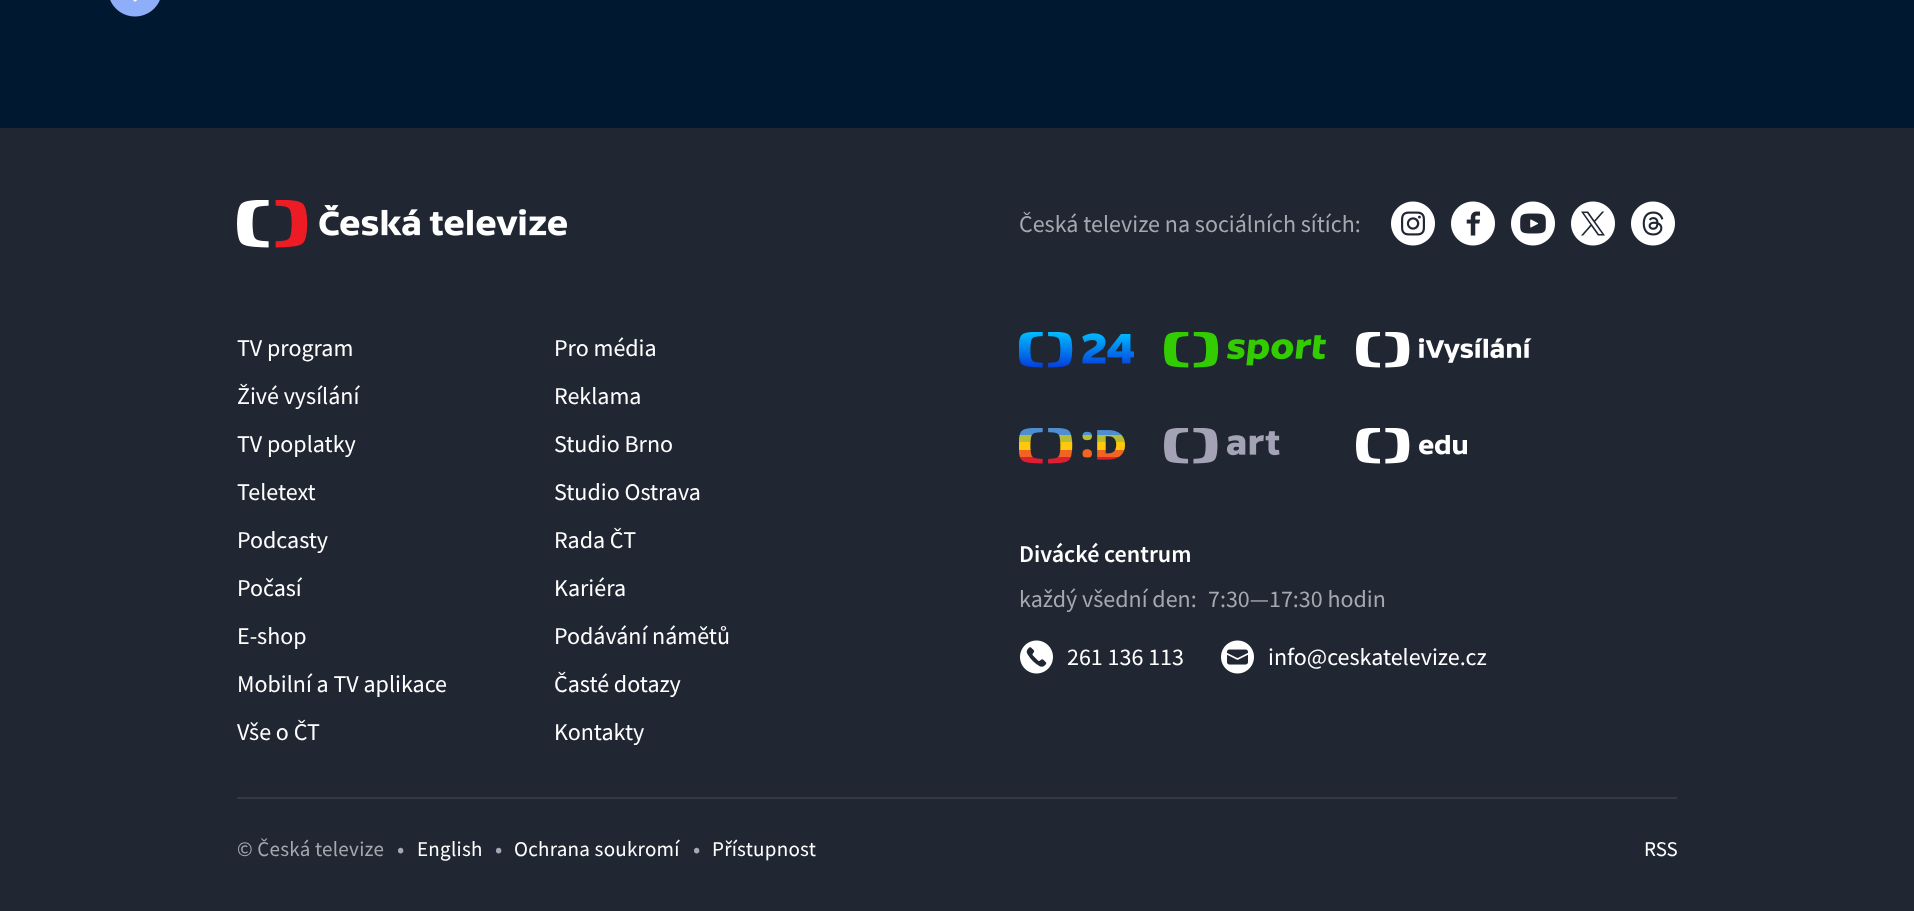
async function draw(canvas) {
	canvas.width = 1914;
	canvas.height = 911;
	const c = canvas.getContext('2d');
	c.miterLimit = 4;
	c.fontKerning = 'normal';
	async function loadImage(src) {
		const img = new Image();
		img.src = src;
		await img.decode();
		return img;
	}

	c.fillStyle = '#001830';
	c.fillRect(0, 0, 1914, 911);
	c.drawImage(await loadImage('img1.png'), 110, 0, 50, 17);
	c.fillStyle = '#202632';
	c.fillRect(0, 128, 1914, 783);
	c.drawImage(await loadImage('img2.png'), 237, 200, 330, 48);
	c.font = '24px Source Sans Pro';
	c.fillStyle = '#a5a8ae';
	c.fillText('Česká televize na sociálních sítích:', 1019, 232);
	c.drawImage(await loadImage('img3.png'), 1391, 201, 44, 45);
	c.drawImage(await loadImage('img4.png'), 1451, 201, 44, 45);
	c.drawImage(await loadImage('img5.png'), 1511, 201, 44, 45);
	c.drawImage(await loadImage('img6.png'), 1571, 201, 44, 45);
	c.drawImage(await loadImage('img7.png'), 1631, 201, 44, 45);
	c.fillStyle = '#fff';
	for (const [text, x, y] of [
		['TV program', 237, 356],
		['Pro média', 554, 356],
		['Živé vysílání', 237, 404],
		['Reklama', 554, 404],
		['TV poplatky', 237, 452],
		['Studio Brno', 554, 452],
		['Teletext', 237, 500],
		['Studio Ostrava', 554, 500],
		['Podcasty', 237, 548],
		['Rada ČT', 554, 548],
		['Počasí', 237, 596],
		['Kariéra', 554, 596],
		['E-shop', 237, 644],
		['Podávání námětů', 554, 644],
		['Mobilní a TV aplikace', 237, 692],
		['Časté dotazy', 554, 692],
		['Vše o ČT', 237, 740],
		['Kontakty', 554, 740],
	]) {
		c.fillText(text, x, y);
	}
	c.drawImage(await loadImage('img8.png'), 1019, 332, 115, 36);
	c.drawImage(await loadImage('img9.png'), 1164, 332, 162, 36);
	c.drawImage(await loadImage('img10.png'), 1356, 332, 176, 36);
	c.drawImage(await loadImage('img11.png'), 1019, 428, 106, 36);
	c.drawImage(await loadImage('img12.png'), 1164, 428, 116, 36);
	c.drawImage(await loadImage('img13.png'), 1356, 428, 111, 36);
	c.font = '600 24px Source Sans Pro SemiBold';
	c.fillText('Divácké centrum', 1019, 562);
	c.font = '24px Source Sans Pro';
	c.fillStyle = '#a5a8ae';
	c.fillText('každý všední den:', 1019, 607);
	c.fillText('7:30—17:30 hodin', 1208, 607);
	c.drawImage(await loadImage('img14.png'), 1020, 640, 33, 34);
	c.fillStyle = '#fff';
	c.fillText('261 136 113', 1067, 665);
	c.drawImage(await loadImage('img15.png'), 1221, 640, 33, 34);
	c.fillText('info@ceskatelevize.cz', 1268, 665);
	c.fillStyle = '#343943';
	c.fillRect(237, 797, 1440, 2);
	c.letterSpacing = '0.25px';
	c.font = '21px Source Sans Pro';
	c.fillStyle = '#a5a8ae';
	c.fillText('© Česká televize', 237, 856);
	c.font = '24px Source Sans Pro';
	c.fillText('•', 397, 857);
	c.font = '21px Source Sans Pro';
	c.fillStyle = '#fff';
	c.fillText('English', 417, 856);
	c.font = '24px Source Sans Pro';
	c.fillStyle = '#a5a8ae';
	c.fillText('•', 495, 857);
	c.font = '21px Source Sans Pro';
	c.fillStyle = '#fff';
	c.fillText('Ochrana soukromí', 514, 856);
	c.font = '24px Source Sans Pro';
	c.fillStyle = '#a5a8ae';
	c.fillText('•', 693, 857);
	c.font = '21px Source Sans Pro';
	c.fillStyle = '#fff';
	c.fillText('Přístupnost', 712, 856);
	c.letterSpacing = '0px';
	c.fillText('RSS', 1644, 856);
}

draw(document.querySelector('canvas'));
